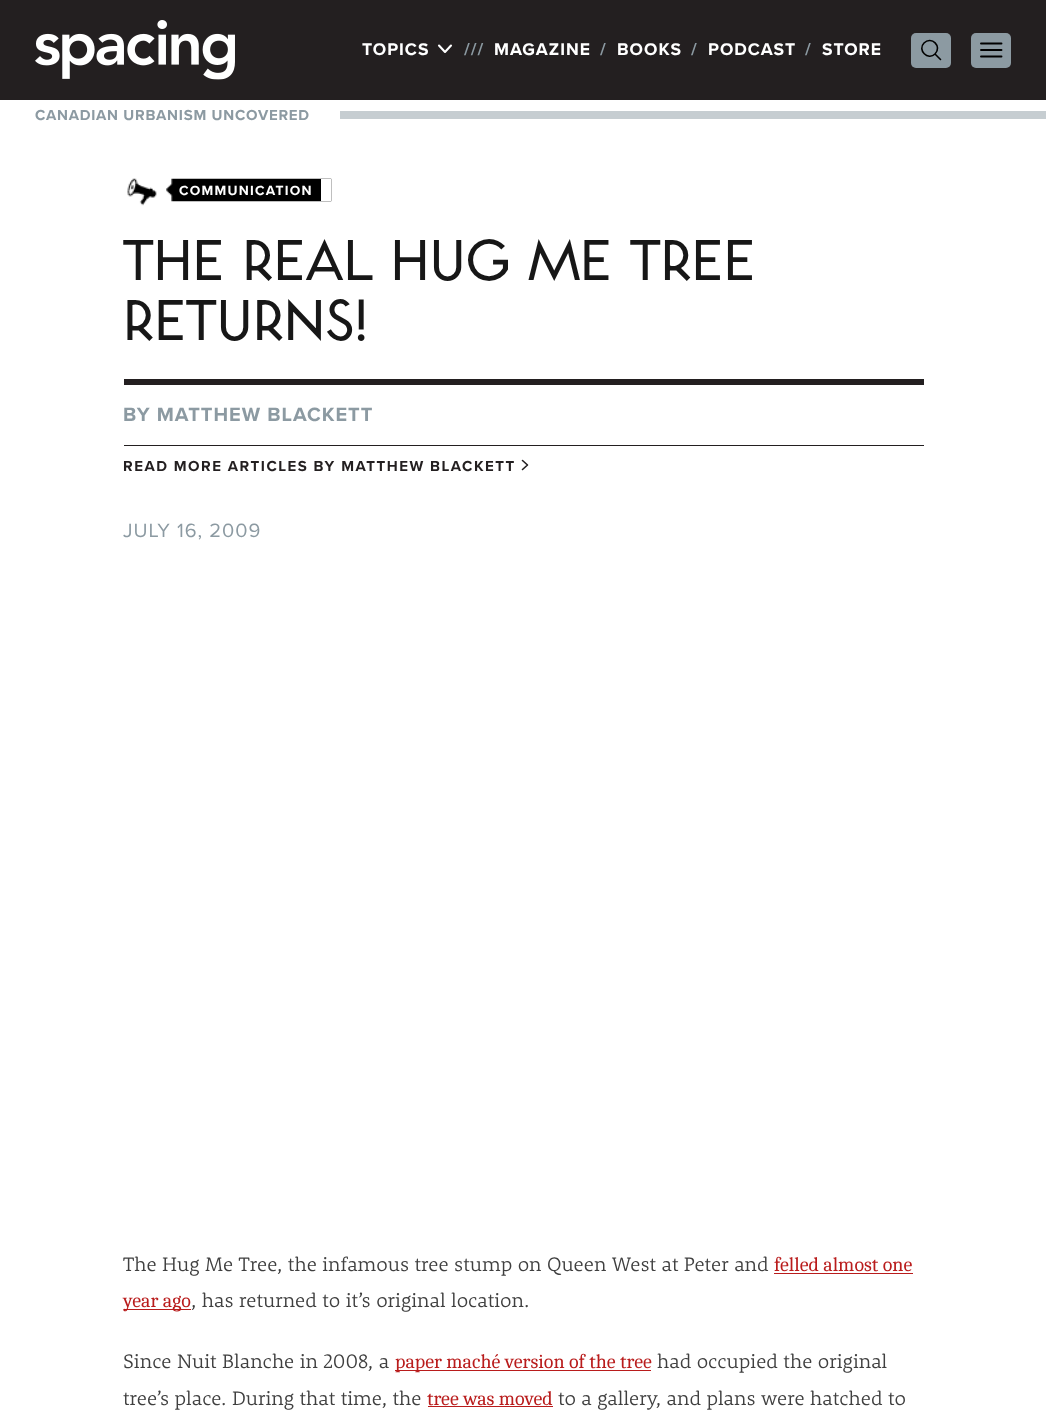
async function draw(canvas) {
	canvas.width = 1046;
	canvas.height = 1416;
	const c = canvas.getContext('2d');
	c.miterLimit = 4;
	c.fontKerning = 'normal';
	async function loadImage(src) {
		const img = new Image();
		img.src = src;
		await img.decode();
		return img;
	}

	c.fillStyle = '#fff';
	c.fillRect(0, 0, 1046, 1416);
	c.fillStyle = '#231f20';
	c.fillRect(0, 0, 1046, 100);
	c.drawImage(await loadImage('img1.png'), 35, 20, 200, 60);
	c.letterSpacing = '1px';
	c.font = 'bold 17.5px Proxima Nova';
	c.fillStyle = '#fff';
	c.fillText('TOPICS', 362, 55);
	c.beginPath();
	c.moveTo(451, 45.5);
	c.lineTo(445, 52);
	c.lineTo(439, 45.5);
	c.strokeStyle = '#fff';
	c.lineWidth = 2.1;
	c.lineCap = 'round';
	c.lineJoin = 'round';
	c.stroke();
	c.fillStyle = '#8c9aa2';
	c.fillText('///', 464, 55);
	c.fillStyle = '#fff';
	c.fillText('MAGAZINE', 494, 55);
	c.fillStyle = '#8c9aa2';
	c.fillText('/', 600, 55);
	c.fillStyle = '#fff';
	c.fillText('BOOKS', 617, 55);
	c.fillStyle = '#8c9aa2';
	c.fillText('/', 691, 55);
	c.fillStyle = '#fff';
	c.fillText('PODCAST', 708, 55);
	c.fillStyle = '#8c9aa2';
	c.fillText('/', 805, 55);
	c.fillStyle = '#fff';
	c.fillText('STORE', 822, 55);
	c.fillStyle = '#8c9aa2';
	c.beginPath();
	c.roundRect(911, 33, 40, 35, 5);
	c.fill();
	c.beginPath();
	c.moveTo(940.5, 59.5);
	c.lineTo(935, 54);
	c.moveTo(935, 54);
	c.bezierCurveTo(942.5, 46.5, 931.5, 35.5, 924, 43);
	c.bezierCurveTo(917, 50, 928, 61, 935, 54);
	c.closePath();
	c.strokeStyle = '#000';
	c.lineWidth = 1.6;
	c.stroke();
	c.beginPath();
	c.roundRect(971, 33, 40, 35, 5);
	c.fill();
	c.beginPath();
	c.moveTo(981, 43.5);
	c.lineTo(1001.5, 43.5);
	c.moveTo(981, 50);
	c.lineTo(1001.5, 50);
	c.moveTo(981, 56.5);
	c.lineTo(1001.5, 56.5);
	c.lineWidth = 1.9;
	c.stroke();
	c.letterSpacing = '0.75px';
	c.font = 'bold 15px Proxima Nova';
	c.fillText('CANADIAN URBANISM UNCOVERED', 35, 120);
	c.fillStyle = '#c6cdd1';
	c.fillRect(340, 111, 706, 8);
	c.drawImage(await loadImage('img2.png'), 127, 178, 30, 28);
	c.drawImage(await loadImage('img3.png'), 166, 178, 166, 24);
	c.fillStyle = '#fff';
	c.fillRect(321, 179, 10, 22);
	c.letterSpacing = '1.25px';
	c.font = 'bold 13.75px Proxima Nova';
	c.fillText('COMMUNICATION', 179, 195);
	c.letterSpacing = '0px';
	c.font = '60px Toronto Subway';
	c.fillStyle = '#171717';
	c.fillText('THE REAL HUG ME TREE', 123, 280);
	c.fillText('RETURNS!', 123, 340);
	c.fillStyle = '#231f20';
	c.fillRect(124, 379, 800, 6);
	c.fillRect(124, 445, 800, 1);
	c.letterSpacing = '1px';
	c.font = 'bold 20px Proxima Nova';
	c.fillStyle = '#8c9aa2';
	c.fillText('BY MATTHEW BLACKETT', 123, 421);
	c.letterSpacing = '1.5px';
	c.font = 'bold 15px Proxima Nova';
	c.fillStyle = '#231f20';
	c.fillText('READ MORE ARTICLES BY MATTHEW BLACKETT', 123, 471);
	c.beginPath();
	c.moveTo(522.5, 460.5);
	c.lineTo(527.5, 465);
	c.lineTo(522.5, 469.5);
	c.strokeStyle = '#231f20';
	c.lineWidth = 1.6;
	c.stroke();
	c.letterSpacing = '1px';
	c.font = '20px Proxima Nova';
	c.fillStyle = '#8c9aa2';
	c.fillText('JULY 16, 2009', 123, 537);
	c.letterSpacing = '0px';
	c.font = '300 20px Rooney';
	c.fillStyle = '#404040';
	c.fillText('The Hug Me Tree, the infamous tree stump on Queen West at Peter and', 123, 1271);
	c.font = '20px Caladea';
	c.fillStyle = '#b91c1c';
	c.fillText('felled almost one', 774, 1271);
	c.fillRect(774, 1273, 139, 1);
	c.fillRect(124, 1309, 67, 1);
	c.fillText('year ago', 123, 1307);
	c.font = '300 20px Rooney';
	c.fillStyle = '#404040';
	c.fillText(', has returned to it’s original location.', 191, 1307);
	c.fillText('Since Nuit Blanche in 2008, a', 123, 1368);
	c.fillStyle = '#b91c1c';
	c.fillRect(395, 1370, 256, 1);
	c.font = '20px Caladea';
	c.fillText('paper maché version of the tree', 395, 1368);
	c.font = '300 20px Rooney';
	c.fillStyle = '#404040';
	c.fillText('had occupied the original', 657, 1368);
	c.fillText('tree’s place. During that time, the', 123, 1405);
	c.font = '20px Caladea';
	c.fillStyle = '#b91c1c';
	c.fillText('tree was moved', 427, 1405);
	c.fillRect(428, 1406, 125, 1);
	c.font = '300 20px Rooney';
	c.fillStyle = '#404040';
	c.fillText('to a gallery, and plans were hatched to', 558, 1405);
}

draw(document.querySelector('canvas'));
